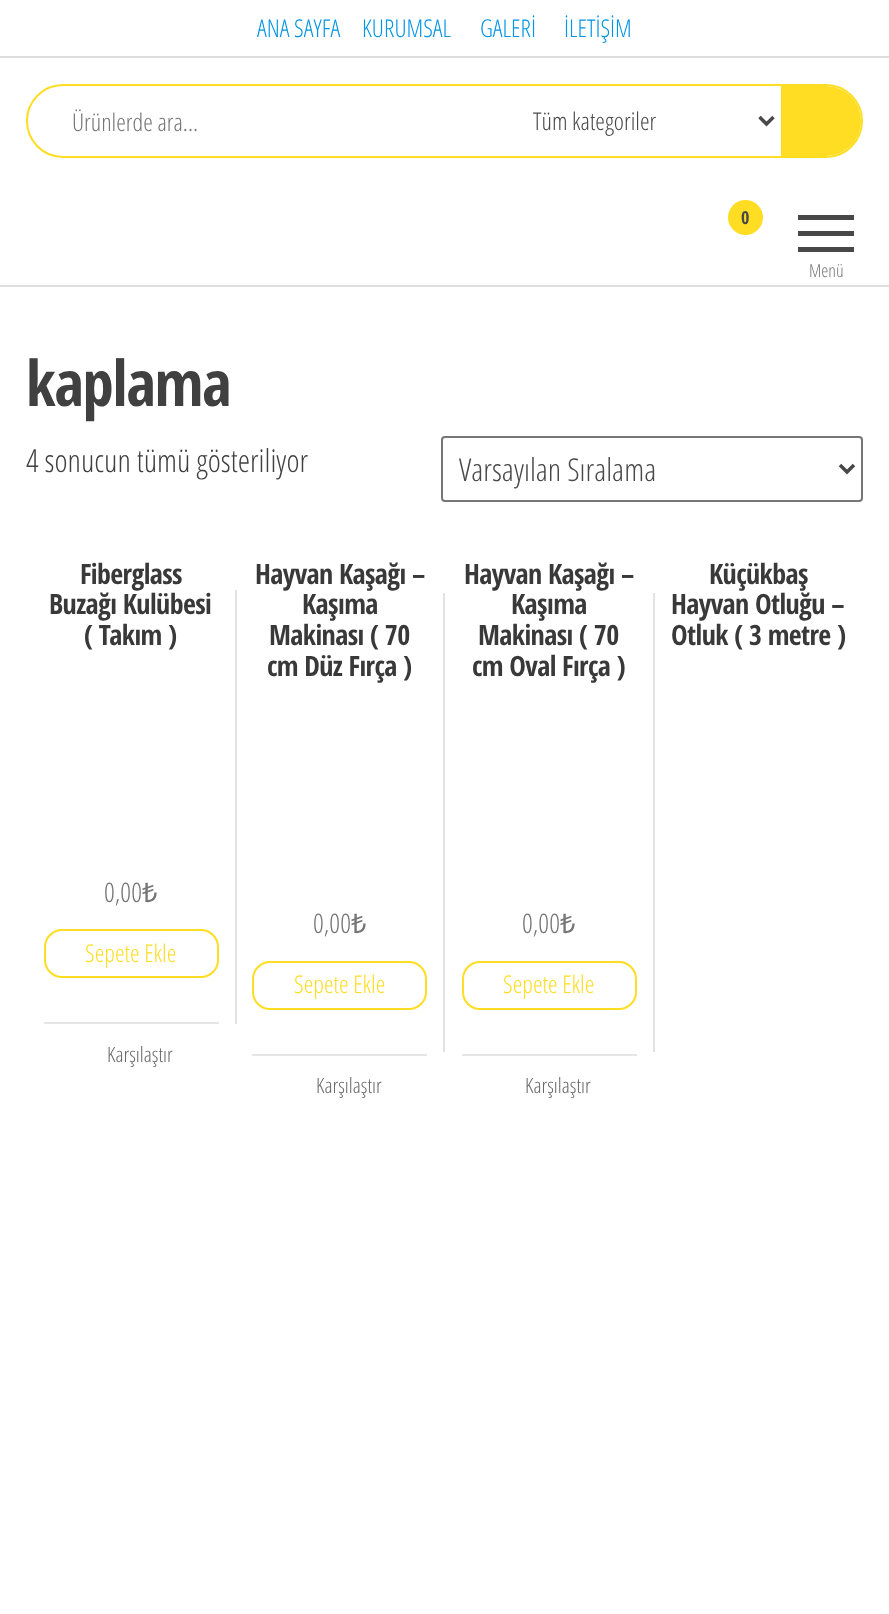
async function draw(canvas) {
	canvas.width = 889;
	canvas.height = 1614;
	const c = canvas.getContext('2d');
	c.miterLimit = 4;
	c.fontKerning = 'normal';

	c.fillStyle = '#fff';
	c.fillRect(0, 0, 889, 1614);
	c.fillStyle = '#ddd';
	c.fillRect(0, 56, 889, 2);
	c.font = '300 24.5px Open Sans Condensed';
	c.fillStyle = '#0094e5';
	for (const [text, x, y] of [
		['ANA SAYFA', 257, 37],
		['KURUMSAL', 362, 37],
		['GALERİ', 480, 37],
		['İLETİŞİM', 564, 37],
	]) {
		c.fillText(text, x, y);
	}
	c.beginPath();
	c.roundRect(27, 85, 835, 72, 36);
	c.strokeStyle = '#fd2';
	c.lineWidth = 2;
	c.stroke();
	c.fillStyle = '#757575';
	c.fillText('Ürünlerde ara...', 72, 131);
	c.beginPath();
	c.moveTo(759.5, 117);
	c.lineTo(766.5, 124);
	c.lineTo(773.5, 117);
	c.strokeStyle = '#484848';
	c.lineWidth = 3.5;
	c.stroke();
	c.fillStyle = '#484848';
	c.fillText('Tüm kategoriler', 533, 130);
	c.fillStyle = '#fd2';
	c.beginPath();
	c.roundRect(781, 86, 80, 70, [0, 35, 35, 0]);
	c.fill();
	c.fillStyle = '#ddd';
	c.fillRect(0, 285, 889, 2);
	c.fillStyle = '#fd2';
	c.beginPath();
	c.arc(745.5, 217.5, 17.5, 0, 2 * Math.PI);
	c.fill();
	c.font = 'bold 18px Open Sans Condensed';
	c.fillStyle = '#484848';
	c.fillText('0', 741, 224);
	for (const [x, y, w, h, color] of [
		[798, 215, 56, 5, '#484848'],
		[798, 231, 56, 5, '#484848'],
		[798, 247, 56, 5, '#484848'],
	]) {
		c.fillStyle = color;
		c.fillRect(x, y, w, h);
	}
	c.font = '300 18px Open Sans Condensed';
	c.fillStyle = '#757575';
	c.fillText('Menü', 809, 277);
	c.letterSpacing = '-1.25px';
	c.font = 'bold 63px Open Sans Condensed';
	c.fillStyle = '#404040';
	c.fillText('kaplama', 26, 406);
	c.letterSpacing = '0px';
	c.font = '300 31.5px Open Sans Condensed';
	c.fillText('4 sonucun tümü gösteriliyor', 26, 472);
	c.beginPath();
	c.roundRect(442, 437, 420, 64, 3);
	c.strokeStyle = '#767676';
	c.lineWidth = 2;
	c.stroke();
	c.beginPath();
	c.moveTo(840, 465);
	c.lineTo(847, 472);
	c.lineTo(854, 465);
	c.strokeStyle = '#484848';
	c.lineWidth = 3.5;
	c.stroke();
	c.fillStyle = '#484848';
	c.fillText('Varsayılan Sıralama', 459, 481);
	c.letterSpacing = '-0.6px';
	c.font = 'bold 28px Open Sans Condensed';
	c.fillStyle = '#39393a';
	for (const [text, x, y] of [
		['Fiberglass', 80, 584],
		['Buzağı Kulübesi', 49, 614],
		['( Takım )', 84, 645],
	]) {
		c.fillText(text, x, y);
	}
	c.letterSpacing = '0px';
	c.font = '300 27px Open Sans Condensed';
	c.fillStyle = '#757575';
	c.fillText('0,00', 104, 902);
	c.font = '27px Noto Sans';
	c.fillText('₺', 142, 902);
	c.fillStyle = '#e2e2e2';
	c.fillRect(235, 590, 2, 434);
	c.beginPath();
	c.roundRect(45, 930, 173, 47, 17);
	c.strokeStyle = '#fd2';
	c.lineWidth = 2;
	c.stroke();
	c.font = '300 24.5px Open Sans Condensed';
	c.fillStyle = '#fd2';
	c.fillText('Sepete Ekle', 85, 962);
	c.fillStyle = '#e6e6e6';
	c.fillRect(44, 1022, 175, 2);
	c.font = '300 21px Open Sans Condensed';
	c.fillStyle = '#666';
	c.fillText('Karşılaştır', 107, 1062);
	c.letterSpacing = '-0.6px';
	c.font = 'bold 28px Open Sans Condensed';
	c.fillStyle = '#39393a';
	for (const [text, x, y] of [
		['Hayvan Kaşağı –', 255, 584],
		['Kaşıma', 302, 614],
		['Makinası ( 70', 269, 645],
		['cm Düz Fırça )', 267, 676],
	]) {
		c.fillText(text, x, y);
	}
	c.letterSpacing = '0px';
	c.font = '300 27px Open Sans Condensed';
	c.fillStyle = '#757575';
	c.fillText('0,00', 313, 933);
	c.font = '27px Noto Sans';
	c.fillText('₺', 351, 933);
	c.fillStyle = '#e2e2e2';
	c.fillRect(443, 593, 2, 459);
	c.beginPath();
	c.roundRect(253, 962, 173, 47, 17);
	c.stroke();
	c.font = '300 24.5px Open Sans Condensed';
	c.fillStyle = '#fd2';
	c.fillText('Sepete Ekle', 294, 993);
	c.fillStyle = '#e6e6e6';
	c.fillRect(252, 1054, 175, 2);
	c.font = '300 21px Open Sans Condensed';
	c.fillStyle = '#666';
	c.fillText('Karşılaştır', 316, 1093);
	c.letterSpacing = '-0.6px';
	c.font = 'bold 28px Open Sans Condensed';
	c.fillStyle = '#39393a';
	for (const [text, x, y] of [
		['Hayvan Kaşağı –', 464, 584],
		['Kaşıma', 511, 614],
		['Makinası ( 70', 478, 645],
		['cm Oval Fırça )', 472, 676],
	]) {
		c.fillText(text, x, y);
	}
	c.letterSpacing = '0px';
	c.font = '300 27px Open Sans Condensed';
	c.fillStyle = '#757575';
	c.fillText('0,00', 522, 933);
	c.font = '27px Noto Sans';
	c.fillText('₺', 560, 933);
	c.fillStyle = '#e2e2e2';
	c.fillRect(653, 593, 2, 459);
	c.beginPath();
	c.roundRect(463, 962, 173, 47, 17);
	c.stroke();
	c.font = '300 24.5px Open Sans Condensed';
	c.fillStyle = '#fd2';
	c.fillText('Sepete Ekle', 503, 993);
	c.fillStyle = '#e6e6e6';
	c.fillRect(462, 1054, 175, 2);
	c.font = '300 21px Open Sans Condensed';
	c.fillStyle = '#666';
	c.fillText('Karşılaştır', 525, 1093);
	c.letterSpacing = '-0.6px';
	c.font = 'bold 28px Open Sans Condensed';
	c.fillStyle = '#39393a';
	for (const [text, x, y] of [
		['Küçükbaş', 709, 584],
		['Hayvan Otluğu –', 671, 614],
		['Otluk ( 3 metre )', 671, 645],
	]) {
		c.fillText(text, x, y);
	}
}

draw(document.querySelector('canvas'));
